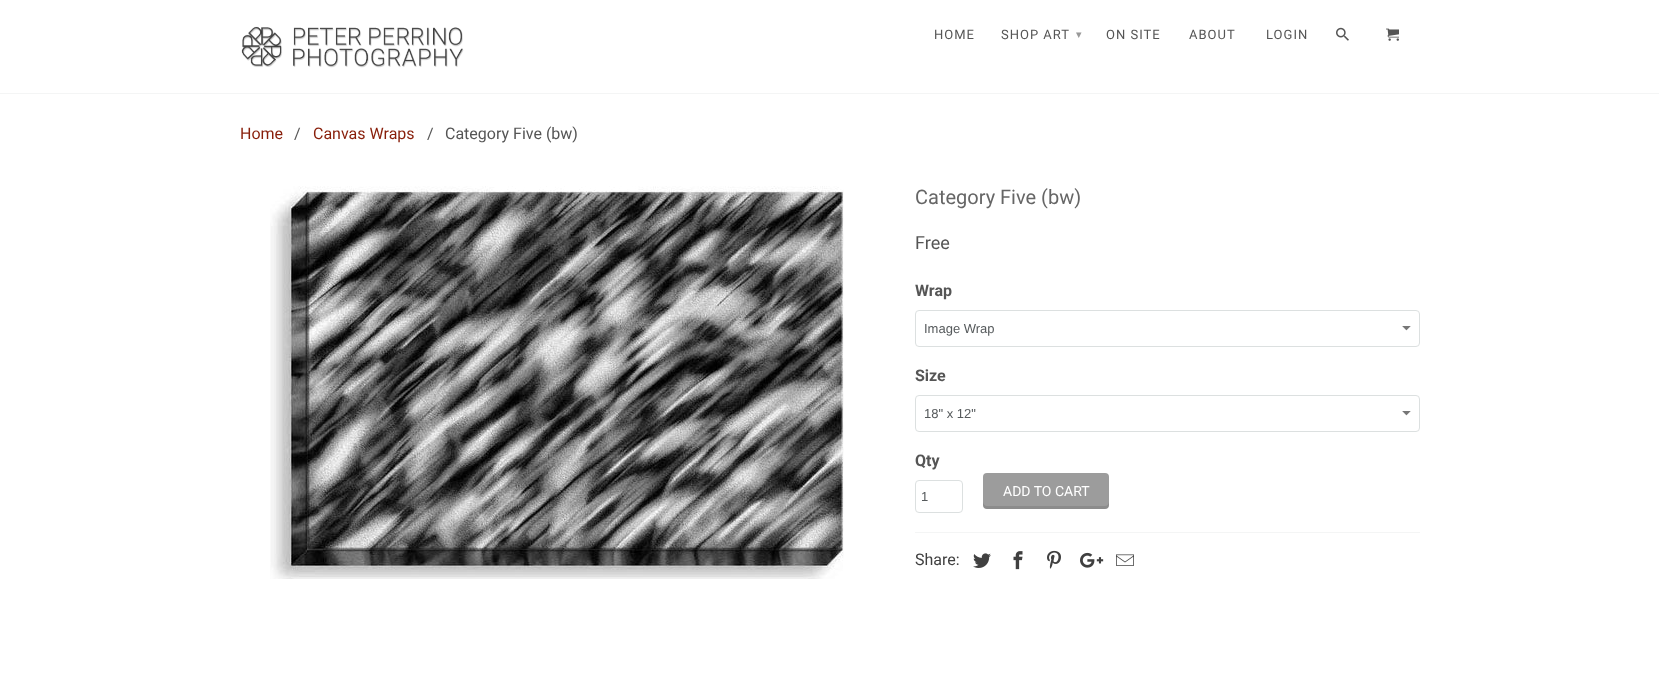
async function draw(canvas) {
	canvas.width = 1659;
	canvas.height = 683;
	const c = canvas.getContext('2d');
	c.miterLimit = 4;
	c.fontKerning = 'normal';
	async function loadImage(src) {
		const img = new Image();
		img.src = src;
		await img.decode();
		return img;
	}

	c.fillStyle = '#fff';
	c.fillRect(0, 0, 1659, 683);
	c.fillStyle = '#f4f5f5';
	c.fillRect(0, 93, 1659, 1);
	c.drawImage(await loadImage('img1.png'), 241, 26, 223, 42);
	c.letterSpacing = '1px';
	c.font = '13px Roboto';
	c.fillStyle = '#555';
	c.fillText('HOME', 934, 39);
	c.fillText('SHOP ART', 1001, 39);
	c.font = '11px DejaVu Sans';
	c.fillStyle = '#999';
	c.fillText('▾', 1076, 38);
	c.font = '13px Roboto';
	c.fillStyle = '#555';
	for (const [text, x, y] of [
		['ON SITE', 1106, 39],
		['ABOUT', 1189, 39],
		['LOGIN', 1266, 39],
	]) {
		c.fillText(text, x, y);
	}
	c.drawImage(await loadImage('img2.png'), 1336, 27, 13, 14);
	c.drawImage(await loadImage('img3.png'), 1386, 28, 13, 13);
	c.letterSpacing = '0px';
	c.font = '16px Roboto';
	c.fillStyle = '#881e0a';
	c.fillText('Home', 240, 139);
	c.fillStyle = '#555';
	c.fillText('/', 294, 139);
	c.fillStyle = '#881e0a';
	c.fillText('Canvas Wraps', 313, 139);
	c.fillStyle = '#555';
	c.fillText('/', 427, 139);
	c.fillText('Category Five (bw)', 445, 139);
	c.drawImage(await loadImage('img4.png'), 270, 186, 574, 393);
	c.font = '20px Roboto';
	c.fillStyle = '#666';
	c.fillText('Category Five (bw)', 915, 204);
	c.font = '18px Roboto';
	c.fillStyle = '#555';
	c.fillText('Free', 915, 249);
	c.font = 'bold 16px Roboto';
	c.fillText('Wrap', 915, 296);
	c.drawImage(await loadImage('img5.png'), 1402, 326, 9, 5);
	c.beginPath();
	c.roundRect(915.5, 310.5, 504, 36, 3.5);
	c.strokeStyle = '#dce0e0';
	c.stroke();
	c.font = '13px Liberation Sans';
	c.fillStyle = '#565a5c';
	c.fillText('Image Wrap', 924, 333);
	c.font = 'bold 16px Roboto';
	c.fillStyle = '#555';
	c.fillText('Size', 915, 381);
	c.drawImage(await loadImage('img5.png'), 1402, 411, 9, 5);
	c.beginPath();
	c.roundRect(915.5, 395.5, 504, 36, 3.5);
	c.stroke();
	c.font = '13px Liberation Sans';
	c.fillStyle = '#565a5c';
	c.fillText('18" x 12"', 924, 418);
	c.font = 'bold 16px Roboto';
	c.fillStyle = '#555';
	c.fillText('Qty', 915, 466);
	c.beginPath();
	c.roundRect(915.5, 480.5, 47, 32, 3.5);
	c.stroke();
	c.font = '13px Liberation Sans';
	c.fillStyle = '#565a5c';
	c.fillText('1', 921, 501);
	c.fillStyle = '#9c9c9c';
	c.beginPath();
	c.roundRect(983, 473, 126, 36, 4);
	c.fill();
	c.fillStyle = '#0000001a';
	c.beginPath();
	c.moveTo(983, 502);
	c.lineTo(983, 505);
	c.bezierCurveTo(983, 507, 985, 509, 987, 509);
	c.lineTo(1105, 509);
	c.bezierCurveTo(1107, 509, 1109, 507, 1109, 505);
	c.lineTo(1109, 502);
	c.bezierCurveTo(1109, 504, 1107, 506, 1105, 506);
	c.lineTo(987, 506);
	c.bezierCurveTo(985, 506, 983, 504, 983, 502);
	c.closePath();
	c.fill();
	c.font = '14px Roboto';
	c.fillStyle = '#fff';
	c.fillText('ADD TO CART', 1003, 496);
	c.fillStyle = '#f4f5f5';
	c.fillRect(915, 532, 505, 1);
	c.font = '16px Roboto';
	c.fillStyle = '#404040';
	c.fillText('Share:', 915, 565);
	c.drawImage(await loadImage('img6.png'), 973, 553, 18, 15);
	c.drawImage(await loadImage('img7.png'), 1013, 551, 10, 19);
	c.drawImage(await loadImage('img8.png'), 1047, 550, 14, 19);
	c.drawImage(await loadImage('img9.png'), 1080, 552, 24, 16);
	c.drawImage(await loadImage('img10.png'), 1116, 554, 18, 12);
}

draw(document.querySelector('canvas'));
